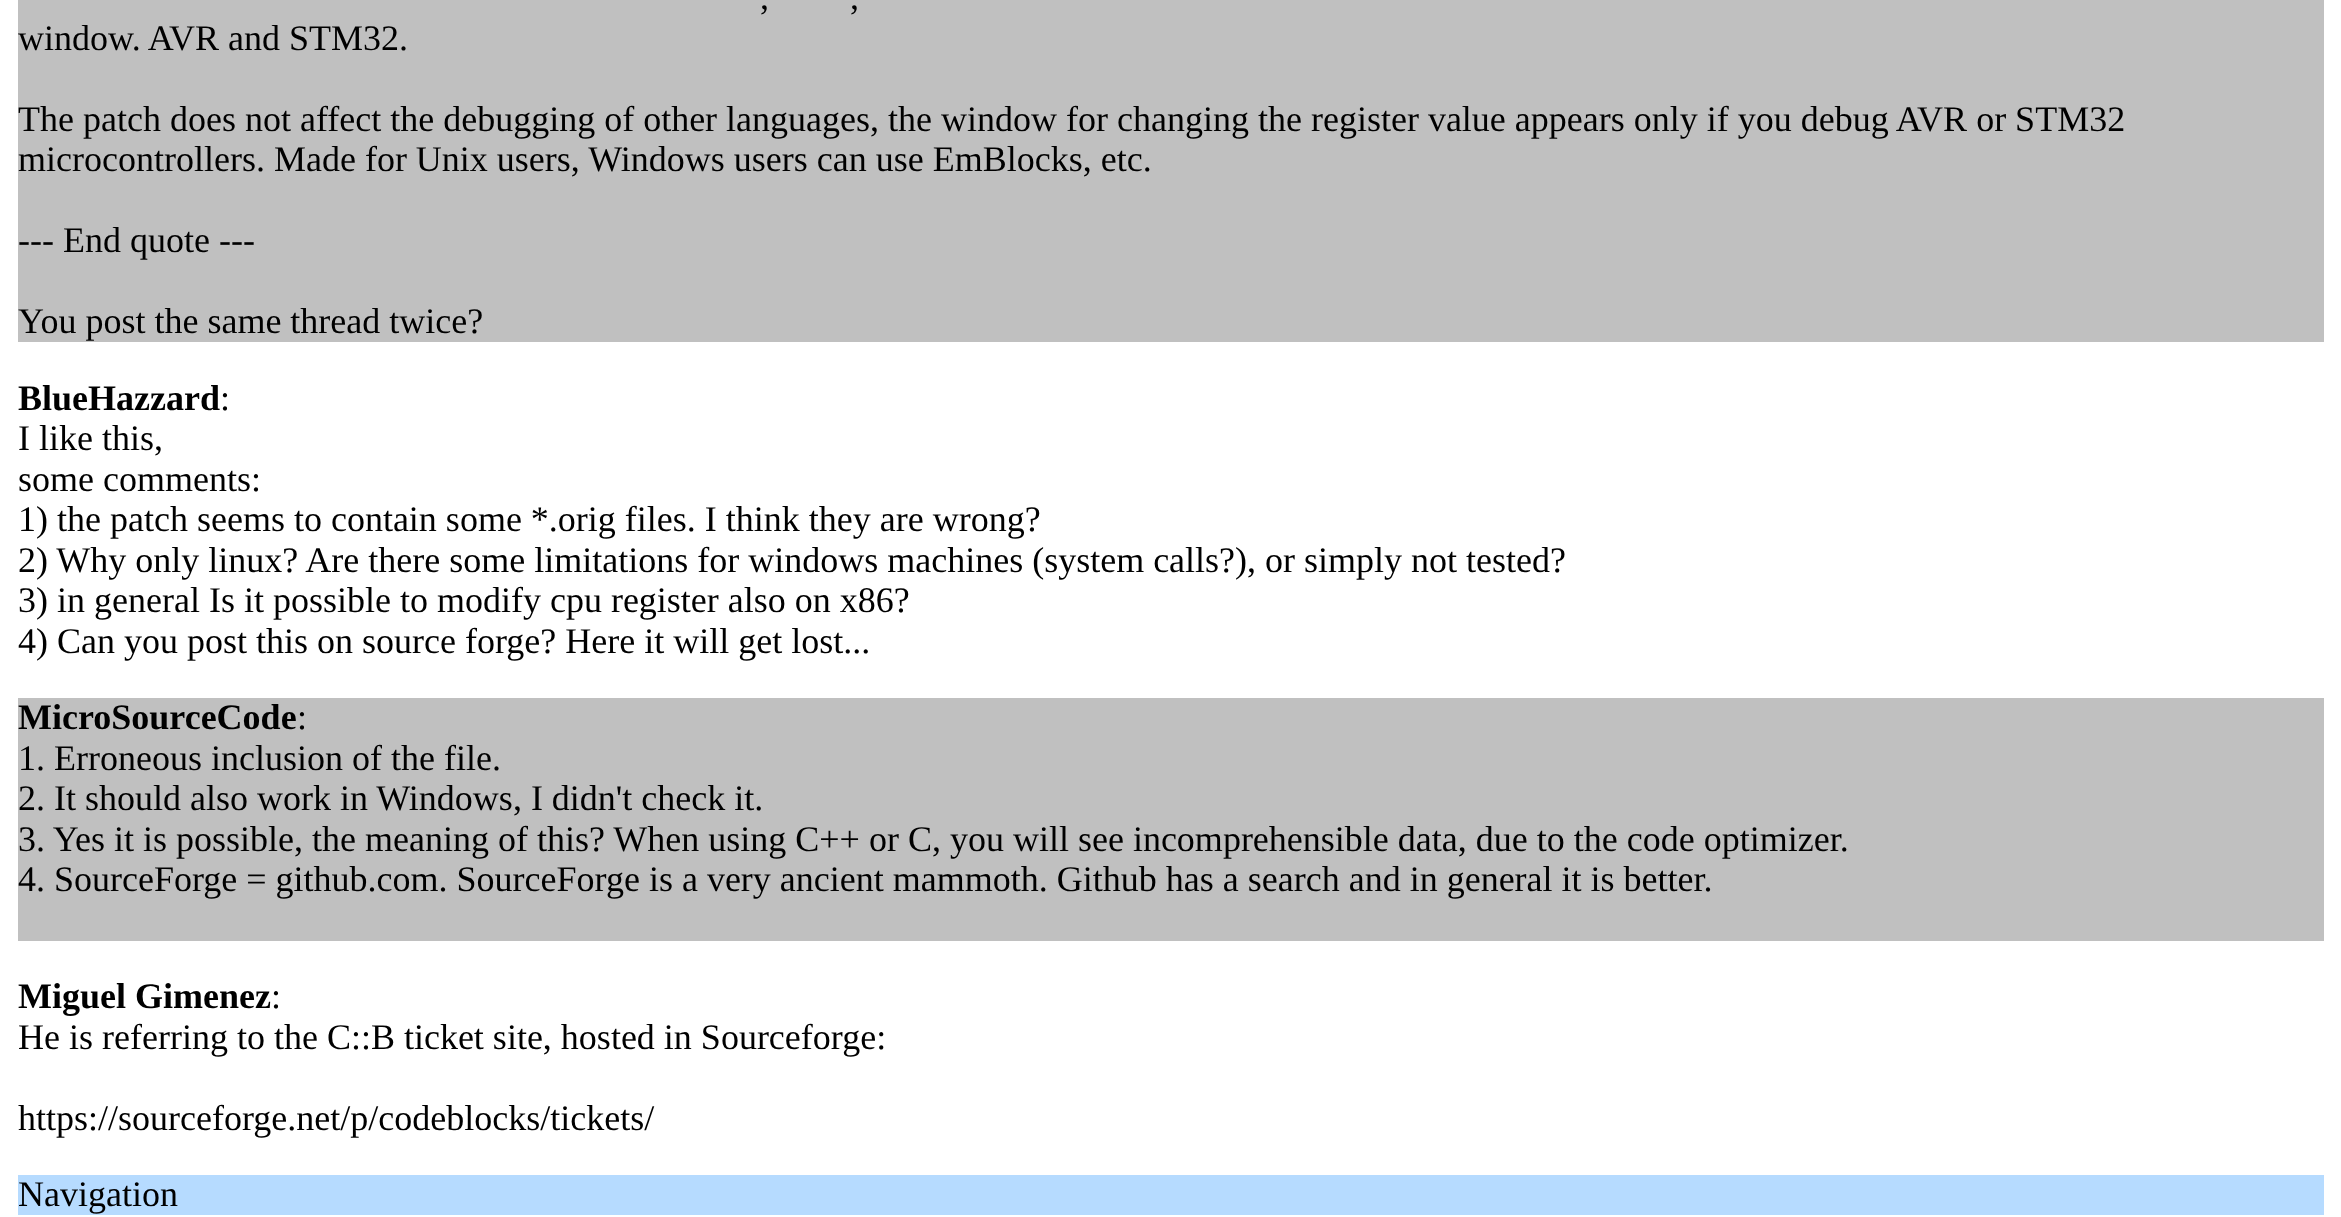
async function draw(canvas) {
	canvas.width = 2341;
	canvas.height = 1217;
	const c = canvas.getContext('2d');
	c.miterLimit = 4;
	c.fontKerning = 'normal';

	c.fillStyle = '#fff';
	c.fillRect(0, 0, 2341, 1217);
	c.fillStyle = '#c0c0c0';
	c.fillRect(18, 0, 2306, 342);
	c.font = '36px Liberation Serif';
	c.fillStyle = '#000';
	for (const [text, x, y] of [
		[',', 760, 9],
		[',', 850, 9],
		['window. AVR and STM32.', 18, 50],
		['The patch does not affect the debugging of other languages, the window for changing the register value appears only if you debug AVR or STM32', 18, 131],
		['microcontrollers. Made for Unix users, Windows users can use EmBlocks, etc.', 18, 171],
		['--- End quote ---', 18, 252],
		['You post the same thread twice?', 18, 333],
	]) {
		c.fillText(text, x, y);
	}
	c.font = 'bold 36px Liberation Serif';
	c.fillText('BlueHazzard', 18, 410);
	c.font = '36px Liberation Serif';
	for (const [text, x, y] of [
		[':', 220, 410],
		['I like this,', 18, 450],
		['some comments:', 18, 491],
		['1) the patch seems to contain some *.orig files. I think they are wrong?', 18, 531],
		['2) Why only linux? Are there some limitations for windows machines (system calls?), or simply not tested?', 18, 572],
		['3) in general Is it possible to modify cpu register also on x86?', 18, 612],
		['4) Can you post this on source forge? Here it will get lost...', 18, 653],
	]) {
		c.fillText(text, x, y);
	}
	c.fillStyle = '#c0c0c0';
	c.fillRect(18, 698, 2306, 243);
	c.font = 'bold 36px Liberation Serif';
	c.fillStyle = '#000';
	c.fillText('MicroSourceCode', 18, 729);
	c.font = '36px Liberation Serif';
	for (const [text, x, y] of [
		[':', 297, 729],
		['1. Erroneous inclusion of the file.', 18, 770],
		['2. It should also work in Windows, I didn\'t check it.', 18, 810],
		['3. Yes it is possible, the meaning of this? When using C++ or C, you will see incomprehensible data, due to the code optimizer.', 18, 851],
		['4. SourceForge = github.com. SourceForge is a very ancient mammoth. Github has a search and in general it is better.', 18, 891],
	]) {
		c.fillText(text, x, y);
	}
	c.font = 'bold 36px Liberation Serif';
	c.fillText('Miguel Gimenez', 18, 1008);
	c.font = '36px Liberation Serif';
	for (const [text, x, y] of [
		[':', 271, 1008],
		['He is referring to the C::B ticket site, hosted in Sourceforge:', 18, 1049],
		['https://sourceforge.net/p/codeblocks/tickets/', 18, 1130],
	]) {
		c.fillText(text, x, y);
	}
	c.fillStyle = '#b6dbff';
	c.fillRect(18, 1175, 2306, 40);
	c.fillStyle = '#000';
	c.fillText('Navigation', 18, 1206);
}

draw(document.querySelector('canvas'));
